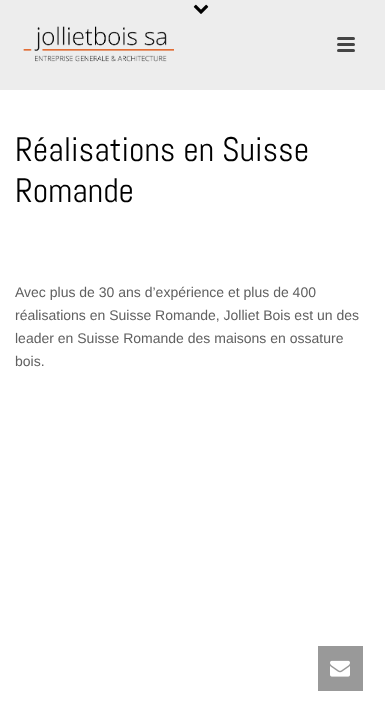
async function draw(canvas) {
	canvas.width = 385;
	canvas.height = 706;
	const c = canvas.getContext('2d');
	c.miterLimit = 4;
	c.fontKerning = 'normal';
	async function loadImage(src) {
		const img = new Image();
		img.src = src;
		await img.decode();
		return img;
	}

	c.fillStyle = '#fff';
	c.fillRect(0, 0, 385, 706);
	c.fillStyle = '#ededed';
	c.fillRect(0, 0, 385, 90);
	c.drawImage(await loadImage('img1.png'), 193, 4, 16, 10);
	c.drawImage(await loadImage('img2.png'), 23, 26, 151, 36);
	c.fillStyle = '#444';
	c.beginPath();
	c.roundRect(337, 37, 18, 3, 1.5);
	c.fill();
	c.beginPath();
	c.roundRect(337, 43, 18, 3, 1.5);
	c.fill();
	c.beginPath();
	c.roundRect(337, 49, 18, 3, 1.5);
	c.fill();
	c.font = '34px Abel';
	c.fillStyle = '#000';
	c.fillText('Réalisations en Suisse', 15, 161);
	c.fillText('Romande', 15, 202);
	c.font = '14px Liberation Sans';
	c.fillStyle = '#606060';
	for (const [text, x, y] of [
		['Avec plus de 30 ans d’expérience et plus de 400', 15, 297],
		['réalisations en Suisse Romande, Jolliet Bois est un des', 15, 320],
		['leader en Suisse Romande des maisons en ossature', 15, 343],
		['bois.', 15, 366],
	]) {
		c.fillText(text, x, y);
	}
	c.fillStyle = '#999';
	c.fillRect(318, 646, 45, 45);
	c.drawImage(await loadImage('img3.png'), 330, 660, 20, 17);
}

draw(document.querySelector('canvas'));
